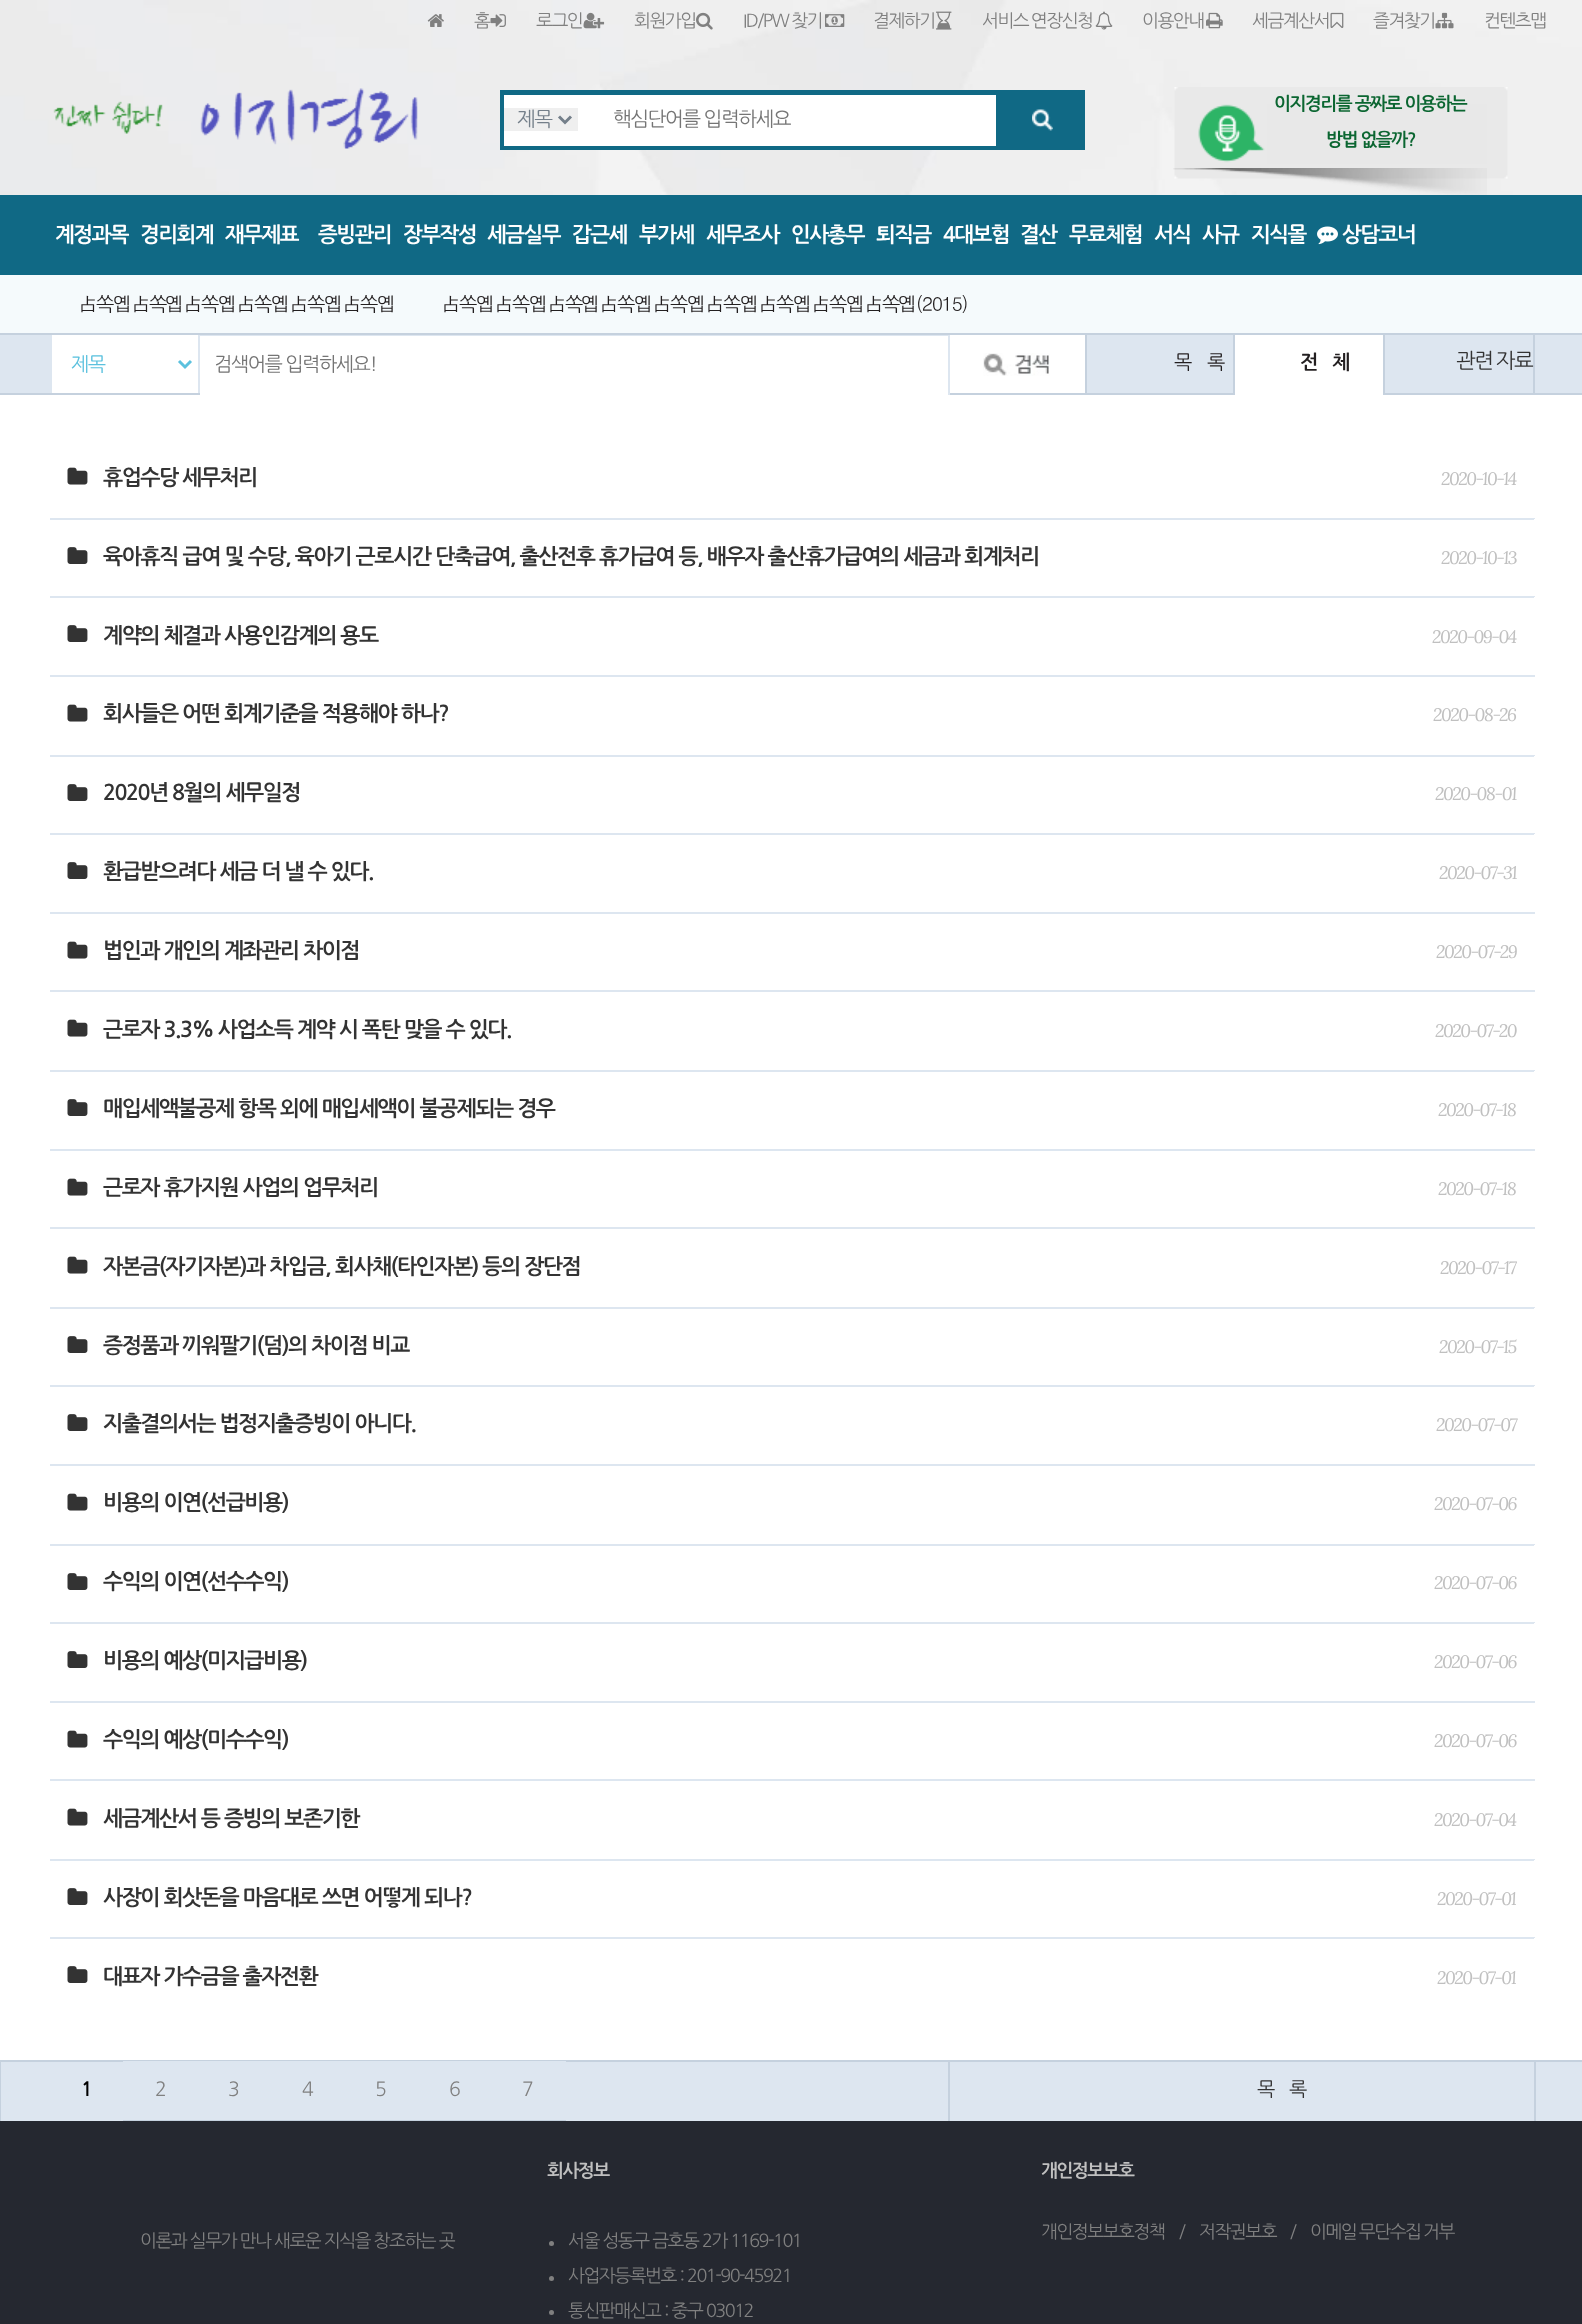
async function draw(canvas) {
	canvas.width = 1582;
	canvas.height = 2324;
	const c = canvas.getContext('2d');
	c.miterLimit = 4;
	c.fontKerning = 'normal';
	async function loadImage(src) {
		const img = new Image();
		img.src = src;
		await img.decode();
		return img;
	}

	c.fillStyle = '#fff';
	c.fillRect(0, 0, 1582, 2324);
	c.drawImage(await loadImage('img1.png'), 0, 0, 1582, 195);
	c.drawImage(await loadImage('img2.png'), 427, 14, 17, 13);
	c.letterSpacing = '-1.5px';
	c.font = '18px NanumGothic';
	c.fillStyle = '#808080';
	c.fillText('홈', 474, 27);
	c.drawImage(await loadImage('img3.png'), 490, 14, 16, 13);
	c.fillText('로그인', 536, 27);
	c.drawImage(await loadImage('img4.png'), 583, 12, 22, 17);
	c.fillText('회원가입', 634, 27);
	c.drawImage(await loadImage('img5.png'), 696, 12, 17, 18);
	c.wordSpacing = '-1px';
	c.fillText('ID/PW 찾기', 743, 27);
	c.drawImage(await loadImage('img6.png'), 825, 14, 20, 13);
	c.wordSpacing = '0px';
	c.fillText('결제하기', 873, 27);
	c.drawImage(await loadImage('img7.png'), 936, 11, 16, 19);
	c.wordSpacing = '-1px';
	c.fillText('서비스 연장신청', 982, 27);
	c.drawImage(await loadImage('img8.png'), 1095, 11, 18, 19);
	c.wordSpacing = '0px';
	c.fillText('이용안내', 1142, 27);
	c.drawImage(await loadImage('img9.png'), 1206, 12, 17, 17);
	c.fillText('세금계산서', 1252, 27);
	c.drawImage(await loadImage('img10.png'), 1330, 12, 14, 16);
	c.fillText('즐겨찾기', 1373, 27);
	c.drawImage(await loadImage('img11.png'), 1435, 12, 19, 17);
	c.fillText('컨텐츠맵', 1484, 27);
	c.drawImage(await loadImage('img12.png'), 53, 88, 365, 61);
	for (const [x, y, w, h, color] of [
		[500, 90, 585, 60, '#106985'],
		[504, 95, 492, 51, '#fff'],
		[504, 108, 74, 23, '#efefef'],
	]) {
		c.fillStyle = color;
		c.fillRect(x, y, w, h);
	}
	c.beginPath();
	c.moveTo(559, 116.5);
	c.lineTo(565, 122.5);
	c.lineTo(571, 116.5);
	c.strokeStyle = '#747f8a';
	c.lineWidth = 3;
	c.stroke();
	c.font = '20px NanumGothic';
	c.fillStyle = '#747f8a';
	c.fillText('제목', 517, 126);
	c.fillStyle = '#757575';
	c.fillText('핵심단어를 입력하세요', 613, 126);
	c.drawImage(await loadImage('img13.png'), 1032, 109, 21, 22);
	c.drawImage(await loadImage('img14.png'), 1174, 87, 334, 92);
	c.font = 'bold 18px NanumGothic';
	c.fillStyle = '#0b6631';
	c.fillText('이지경리를 공짜로 이용하는', 1274, 110);
	c.fillText('방법 없을까?', 1326, 146);
	c.drawImage(await loadImage('img15.png'), 1173, 168, 314, 27);
	c.fillStyle = '#106985';
	c.fillRect(0, 195, 1582, 80);
	c.font = 'bold 21px NanumGothic';
	c.fillStyle = '#fff';
	for (const [text, x, y] of [
		['계정과목', 55, 242],
		['경리회계', 140, 242],
		['재무제표', 225, 242],
		['증빙관리', 318, 242],
		['장부작성', 403, 242],
		['세금실무', 487, 242],
		['갑근세', 572, 242],
		['부가세', 639, 242],
		['세무조사', 706, 242],
		['인사총무', 791, 242],
		['퇴직금', 876, 242],
		['4대보험', 943, 242],
		['결산', 1020, 242],
		['무료체험', 1069, 242],
		['서식', 1154, 242],
		['사규', 1202, 242],
		['지식몰', 1251, 242],
	]) {
		c.fillText(text, x, y);
	}
	c.drawImage(await loadImage('img16.png'), 1317, 226, 21, 19);
	c.fillText('상담코너', 1342, 242);
	c.fillStyle = '#f5fafc';
	c.fillRect(0, 275, 1582, 58);
	c.fillStyle = '#c5d1de';
	c.fillRect(0, 333, 1582, 2);
	c.font = '19.5px Dotum';
	c.fillStyle = '#231f20';
	c.fillText('占', 78, 311);
	c.font = '19.5px NanumGothic';
	c.fillText('쏙', 96, 311);
	c.font = '19.5px Dotum';
	c.fillText('옙占', 113, 311);
	c.font = '19.5px NanumGothic';
	c.fillText('쏙', 149, 311);
	c.font = '19.5px Dotum';
	c.fillText('옙占', 165, 311);
	c.font = '19.5px NanumGothic';
	c.fillText('쏙', 201, 311);
	c.font = '19.5px Dotum';
	c.fillText('옙占', 218, 311);
	c.font = '19.5px NanumGothic';
	c.fillText('쏙', 254, 311);
	c.font = '19.5px Dotum';
	c.fillText('옙占', 271, 311);
	c.font = '19.5px NanumGothic';
	c.fillText('쏙', 307, 311);
	c.font = '19.5px Dotum';
	c.fillText('옙占', 324, 311);
	c.font = '19.5px NanumGothic';
	c.fillText('쏙', 360, 311);
	c.font = '19.5px Dotum';
	c.fillText('옙', 377, 311);
	c.fillText('占', 441, 311);
	c.font = '19.5px NanumGothic';
	c.fillText('쏙', 459, 311);
	c.font = '19.5px Dotum';
	c.fillText('옙占', 476, 311);
	c.font = '19.5px NanumGothic';
	c.fillText('쏙', 512, 311);
	c.font = '19.5px Dotum';
	c.fillText('옙占', 529, 311);
	c.font = '19.5px NanumGothic';
	c.fillText('쏙', 565, 311);
	c.font = '19.5px Dotum';
	c.fillText('옙占', 581, 311);
	c.font = '19.5px NanumGothic';
	c.fillText('쏙', 617, 311);
	c.font = '19.5px Dotum';
	c.fillText('옙占', 634, 311);
	c.font = '19.5px NanumGothic';
	c.fillText('쏙', 670, 311);
	c.font = '19.5px Dotum';
	c.fillText('옙占', 687, 311);
	c.font = '19.5px NanumGothic';
	c.fillText('쏙', 723, 311);
	c.font = '19.5px Dotum';
	c.fillText('옙占', 740, 311);
	c.font = '19.5px NanumGothic';
	c.fillText('쏙', 776, 311);
	c.font = '19.5px Dotum';
	c.fillText('옙占', 793, 311);
	c.font = '19.5px NanumGothic';
	c.fillText('쏙', 829, 311);
	c.font = '19.5px Dotum';
	c.fillText('옙占', 846, 311);
	c.font = '19.5px NanumGothic';
	c.fillText('쏙', 882, 311);
	c.font = '19.5px Dotum';
	c.fillText('옙(2015)', 898, 311);
	for (const [x, y, w, h, color] of [
		[0, 335, 1582, 58, '#dde6f0'],
		[0, 393, 1582, 2, '#c5d1de'],
		[52, 335, 146, 58, '#fff'],
	]) {
		c.fillStyle = color;
		c.fillRect(x, y, w, h);
	}
	c.beginPath();
	c.moveTo(179, 361);
	c.lineTo(185, 367);
	c.lineTo(191, 361);
	c.strokeStyle = '#5bc1de';
	c.stroke();
	c.font = '19.5px NanumGothic';
	c.fillStyle = '#5bc1de';
	c.fillText('제목', 71, 371);
	c.fillStyle = '#fff';
	c.fillRect(200, 336, 748, 59);
	c.fillStyle = '#dde6f0';
	c.fillRect(948, 393, 2, 2);
	c.fillStyle = '#757575';
	c.fillText('검색어를 입력하세요!', 214, 371);
	c.fillStyle = '#fff';
	c.fillRect(950, 335, 135, 58);
	c.drawImage(await loadImage('img17.png'), 983, 353, 67, 23);
	c.fillStyle = '#c5d1de';
	c.fillRect(1233, 335, 2, 60);
	c.fillRect(1085, 335, 2, 60);
	c.fillStyle = '#231f20';
	c.fillText('목', 1174, 369);
	c.fillText('록', 1207, 369);
	c.fillStyle = '#fff';
	c.fillRect(1235, 335, 148, 60);
	c.fillStyle = '#c5d1de';
	c.fillRect(1383, 335, 2, 60);
	c.font = 'bold 19.5px NanumGothic';
	c.fillStyle = '#231f20';
	c.fillText('전', 1300, 369);
	c.fillText('체', 1332, 369);
	c.fillStyle = '#c5d1de';
	c.fillRect(1533, 335, 2, 60);
	c.wordSpacing = '-1px';
	c.font = '21px NanumGothic';
	c.fillStyle = '#333';
	c.fillText('관련 자료', 1456, 368);
	c.fillStyle = '#dde6f0';
	c.fillRect(50, 518, 1485, 2);
	c.drawImage(await loadImage('img18.png'), 67, 467, 21, 18);
	c.wordSpacing = '0px';
	c.font = 'bold 21.45px NanumGothic';
	c.fillStyle = '#333';
	c.fillText('휴업수당 세무처리', 103, 485);
	c.font = 'italic 18px Lora';
	c.fillStyle = '#c0c0c0';
	c.fillText('2020-10-14', 1441, 485);
	c.fillStyle = '#fff';
	c.beginPath();
	c.moveTo(50, 597);
	c.lineTo(50, 599);
	c.lineTo(1535, 599);
	c.lineTo(1535, 519);
	c.lineTo(1534, 519);
	c.lineTo(1534, 597);
	c.closePath();
	c.fill();
	c.fillStyle = '#dde6f0';
	c.fillRect(50, 596, 1485, 2);
	c.drawImage(await loadImage('img19.png'), 67, 547, 21, 17);
	c.letterSpacing = '-1.43px';
	c.font = 'bold 21.45px NanumGothic';
	c.fillStyle = '#333';
	c.fillText('육아휴직 급여 및 수당, 육아기 근로시간 단축급여, 출산전후 휴가급여 등, 배우자 출산휴가급여의 세금과 회계처리', 103, 564);
	c.letterSpacing = '-1.5px';
	c.font = 'italic 18px Lora';
	c.fillStyle = '#c0c0c0';
	c.fillText('2020-10-13', 1441, 564);
	c.fillStyle = '#fff';
	c.beginPath();
	c.moveTo(50, 676);
	c.lineTo(50, 678);
	c.lineTo(1535, 678);
	c.lineTo(1535, 597);
	c.lineTo(1534, 597);
	c.lineTo(1534, 676);
	c.closePath();
	c.fill();
	c.fillStyle = '#dde6f0';
	c.fillRect(50, 675, 1485, 2);
	c.drawImage(await loadImage('img19.png'), 67, 625, 21, 17);
	c.font = 'bold 21.45px NanumGothic';
	c.fillStyle = '#333';
	c.fillText('계약의 체결과 사용인감계의 용도', 103, 643);
	c.font = 'italic 18px Lora';
	c.fillStyle = '#c0c0c0';
	c.fillText('2020-09-04', 1432, 643);
	c.fillStyle = '#dde6f0';
	c.fillRect(50, 755, 1485, 2);
	c.drawImage(await loadImage('img18.png'), 67, 704, 21, 18);
	c.font = 'bold 21.45px NanumGothic';
	c.fillStyle = '#333';
	c.fillText('회사들은 어떤 회계기준을 적용해야 하나?', 103, 721);
	c.font = 'italic 18px Lora';
	c.fillStyle = '#c0c0c0';
	c.fillText('2020-08-26', 1433, 721);
	c.fillStyle = '#fff';
	c.beginPath();
	c.moveTo(50, 834);
	c.lineTo(50, 836);
	c.lineTo(1535, 836);
	c.lineTo(1535, 756);
	c.lineTo(1534, 756);
	c.lineTo(1534, 834);
	c.closePath();
	c.fill();
	c.fillStyle = '#dde6f0';
	c.fillRect(50, 833, 1485, 2);
	c.drawImage(await loadImage('img19.png'), 67, 784, 21, 17);
	c.font = 'bold 21.45px NanumGothic';
	c.fillStyle = '#333';
	c.fillText('2020년 8월의 세무일정', 103, 800);
	c.font = 'italic 18px Lora';
	c.fillStyle = '#c0c0c0';
	c.fillText('2020-08-01', 1435, 800);
	c.fillStyle = '#fff';
	c.beginPath();
	c.moveTo(50, 914);
	c.lineTo(50, 915);
	c.lineTo(1535, 915);
	c.lineTo(1535, 834);
	c.lineTo(1534, 834);
	c.lineTo(1534, 914);
	c.closePath();
	c.fill();
	c.fillStyle = '#dde6f0';
	c.fillRect(50, 912, 1485, 2);
	c.drawImage(await loadImage('img19.png'), 67, 862, 21, 17);
	c.font = 'bold 21.45px NanumGothic';
	c.fillStyle = '#333';
	c.fillText('환급받으려다 세금 더 낼 수 있다.', 103, 879);
	c.font = 'italic 18px Lora';
	c.fillStyle = '#c0c0c0';
	c.fillText('2020-07-31', 1439, 879);
	c.fillStyle = '#dde6f0';
	c.fillRect(50, 990, 1485, 2);
	c.drawImage(await loadImage('img18.png'), 67, 941, 21, 18);
	c.font = 'bold 21.45px NanumGothic';
	c.fillStyle = '#333';
	c.fillText('법인과 개인의 계좌관리 차이점', 103, 958);
	c.font = 'italic 18px Lora';
	c.fillStyle = '#c0c0c0';
	c.fillText('2020-07-29', 1436, 958);
	c.fillStyle = '#dde6f0';
	c.fillRect(50, 1070, 1485, 2);
	c.drawImage(await loadImage('img18.png'), 67, 1019, 21, 18);
	c.font = 'bold 21.45px NanumGothic';
	c.fillStyle = '#333';
	c.fillText('근로자 3.3% 사업소득 계약 시 폭탄 맞을 수 있다.', 103, 1037);
	c.font = 'italic 18px Lora';
	c.fillStyle = '#c0c0c0';
	c.fillText('2020-07-20', 1435, 1037);
	c.fillStyle = '#fff';
	c.beginPath();
	c.moveTo(50, 1150);
	c.lineTo(50, 1152);
	c.lineTo(1535, 1152);
	c.lineTo(1535, 1071);
	c.lineTo(1534, 1071);
	c.lineTo(1534, 1150);
	c.closePath();
	c.fill();
	c.fillStyle = '#dde6f0';
	c.fillRect(50, 1149, 1485, 2);
	c.drawImage(await loadImage('img19.png'), 67, 1099, 21, 17);
	c.font = 'bold 21.45px NanumGothic';
	c.fillStyle = '#333';
	c.fillText('매입세액불공제 항목 외에 매입세액이 불공제되는 경우', 103, 1116);
	c.font = 'italic 18px Lora';
	c.fillStyle = '#c0c0c0';
	c.fillText('2020-07-18', 1438, 1116);
	c.fillStyle = '#dde6f0';
	c.fillRect(50, 1227, 1485, 2);
	c.drawImage(await loadImage('img18.png'), 67, 1178, 21, 18);
	c.font = 'bold 21.45px NanumGothic';
	c.fillStyle = '#333';
	c.fillText('근로자 휴가지원 사업의 업무처리', 103, 1195);
	c.font = 'italic 18px Lora';
	c.fillStyle = '#c0c0c0';
	c.fillText('2020-07-18', 1438, 1195);
	c.fillStyle = '#dde6f0';
	c.fillRect(50, 1307, 1485, 2);
	c.drawImage(await loadImage('img18.png'), 67, 1256, 21, 18);
	c.font = 'bold 21.45px NanumGothic';
	c.fillStyle = '#333';
	c.fillText('자본금(자기자본)과 차입금, 회사채(타인자본) 등의 장단점', 103, 1274);
	c.font = 'italic 18px Lora';
	c.fillStyle = '#c0c0c0';
	c.fillText('2020-07-17', 1440, 1274);
	c.fillStyle = '#fff';
	c.beginPath();
	c.moveTo(50, 1386);
	c.lineTo(50, 1388);
	c.lineTo(1535, 1388);
	c.lineTo(1535, 1308);
	c.lineTo(1534, 1308);
	c.lineTo(1534, 1386);
	c.closePath();
	c.fill();
	c.fillStyle = '#dde6f0';
	c.fillRect(50, 1385, 1485, 2);
	c.drawImage(await loadImage('img19.png'), 67, 1336, 21, 17);
	c.font = 'bold 21.45px NanumGothic';
	c.fillStyle = '#333';
	c.fillText('증정품과 끼워팔기(덤)의 차이점 비교', 103, 1353);
	c.font = 'italic 18px Lora';
	c.fillStyle = '#c0c0c0';
	c.fillText('2020-07-15', 1439, 1353);
	c.fillStyle = '#fff';
	c.beginPath();
	c.moveTo(50, 1466);
	c.lineTo(50, 1467);
	c.lineTo(1535, 1467);
	c.lineTo(1535, 1386);
	c.lineTo(1534, 1386);
	c.lineTo(1534, 1466);
	c.closePath();
	c.fill();
	c.fillStyle = '#dde6f0';
	c.fillRect(50, 1464, 1485, 2);
	c.drawImage(await loadImage('img19.png'), 67, 1414, 21, 17);
	c.font = 'bold 21.45px NanumGothic';
	c.fillStyle = '#333';
	c.fillText('지출결의서는 법정지출증빙이 아니다.', 103, 1431);
	c.font = 'italic 18px Lora';
	c.fillStyle = '#c0c0c0';
	c.fillText('2020-07-07', 1436, 1431);
	c.fillStyle = '#dde6f0';
	c.fillRect(50, 1544, 1485, 2);
	c.drawImage(await loadImage('img18.png'), 67, 1493, 21, 18);
	c.font = 'bold 21.45px NanumGothic';
	c.fillStyle = '#333';
	c.fillText('비용의 이연(선급비용)', 103, 1510);
	c.font = 'italic 18px Lora';
	c.fillStyle = '#c0c0c0';
	c.fillText('2020-07-06', 1434, 1510);
	c.fillStyle = '#fff';
	c.beginPath();
	c.moveTo(50, 1623);
	c.lineTo(50, 1625);
	c.lineTo(1535, 1625);
	c.lineTo(1535, 1545);
	c.lineTo(1534, 1545);
	c.lineTo(1534, 1623);
	c.closePath();
	c.fill();
	c.fillStyle = '#dde6f0';
	c.fillRect(50, 1622, 1485, 2);
	c.drawImage(await loadImage('img19.png'), 67, 1573, 21, 17);
	c.font = 'bold 21.45px NanumGothic';
	c.fillStyle = '#333';
	c.fillText('수익의 이연(선수수익)', 103, 1589);
	c.font = 'italic 18px Lora';
	c.fillStyle = '#c0c0c0';
	c.fillText('2020-07-06', 1434, 1589);
	c.fillStyle = '#fff';
	c.beginPath();
	c.moveTo(50, 1702);
	c.lineTo(50, 1704);
	c.lineTo(1535, 1704);
	c.lineTo(1535, 1623);
	c.lineTo(1534, 1623);
	c.lineTo(1534, 1702);
	c.closePath();
	c.fill();
	c.fillStyle = '#dde6f0';
	c.fillRect(50, 1701, 1485, 2);
	c.drawImage(await loadImage('img19.png'), 67, 1651, 21, 17);
	c.font = 'bold 21.45px NanumGothic';
	c.fillStyle = '#333';
	c.fillText('비용의 예상(미지급비용)', 103, 1668);
	c.font = 'italic 18px Lora';
	c.fillStyle = '#c0c0c0';
	c.fillText('2020-07-06', 1434, 1668);
	c.fillStyle = '#dde6f0';
	c.fillRect(50, 1779, 1485, 2);
	c.drawImage(await loadImage('img18.png'), 67, 1730, 21, 18);
	c.font = 'bold 21.45px NanumGothic';
	c.fillStyle = '#333';
	c.fillText('수익의 예상(미수수익)', 103, 1747);
	c.font = 'italic 18px Lora';
	c.fillStyle = '#c0c0c0';
	c.fillText('2020-07-06', 1434, 1747);
	c.fillStyle = '#dde6f0';
	c.fillRect(50, 1859, 1485, 2);
	c.drawImage(await loadImage('img18.png'), 67, 1808, 21, 18);
	c.font = 'bold 21.45px NanumGothic';
	c.fillStyle = '#333';
	c.fillText('세금계산서 등 증빙의 보존기한', 103, 1826);
	c.font = 'italic 18px Lora';
	c.fillStyle = '#c0c0c0';
	c.fillText('2020-07-04', 1434, 1826);
	c.fillStyle = '#fff';
	c.beginPath();
	c.moveTo(50, 1938);
	c.lineTo(50, 1940);
	c.lineTo(1535, 1940);
	c.lineTo(1535, 1860);
	c.lineTo(1534, 1860);
	c.lineTo(1534, 1938);
	c.closePath();
	c.fill();
	c.fillStyle = '#dde6f0';
	c.fillRect(50, 1937, 1485, 2);
	c.drawImage(await loadImage('img19.png'), 67, 1888, 21, 17);
	c.font = 'bold 21.45px NanumGothic';
	c.fillStyle = '#333';
	c.fillText('사장이 회삿돈을 마음대로 쓰면 어떻게 되나?', 103, 1905);
	c.font = 'italic 18px Lora';
	c.fillStyle = '#c0c0c0';
	c.fillText('2020-07-01', 1437, 1905);
	c.fillStyle = '#fff';
	c.beginPath();
	c.moveTo(50, 2016);
	c.lineTo(50, 2018);
	c.lineTo(1535, 2018);
	c.lineTo(1535, 1938);
	c.lineTo(1534, 1938);
	c.lineTo(1534, 2016);
	c.closePath();
	c.fill();
	c.drawImage(await loadImage('img19.png'), 67, 1966, 21, 17);
	c.font = 'bold 21.45px NanumGothic';
	c.fillStyle = '#333';
	c.fillText('대표자 가수금을 출자전환', 103, 1984);
	c.font = 'italic 18px Lora';
	c.fillStyle = '#c0c0c0';
	c.fillText('2020-07-01', 1437, 1984);
	c.fillStyle = '#dde6f0';
	c.fillRect(1, 2062, 1581, 59);
	c.strokeStyle = '#c5d1de';
	c.lineWidth = 2;
	c.strokeRect(949, 2061, 586, 61);
	c.strokeRect(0, 2061, 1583, 61);
	c.font = 'bold 19.5px NanumGothic';
	c.fillStyle = '#000';
	c.fillText('1', 81, 2096);
	c.fillStyle = '#dde6f0';
	c.fillRect(123, 2061, 443, 1);
	c.fillStyle = '#c5d1de';
	c.fillRect(123, 2120, 443, 1);
	c.font = '19.5px NanumGothic';
	c.fillStyle = '#808080';
	for (const [text, x, y] of [
		['2', 155, 2096],
		['3', 228, 2096],
		['4', 302, 2096],
		['5', 375, 2096],
		['6', 449, 2096],
		['7', 522, 2096],
	]) {
		c.fillText(text, x, y);
	}
	c.fillStyle = '#333';
	c.fillText('목', 1257, 2096);
	c.fillText('록', 1289, 2096);
	c.fillStyle = '#252830';
	c.fillRect(0, 2121, 1582, 203);
	c.font = 'bold 18px NanumGothic';
	c.fillStyle = '#c0c0c0';
	c.fillText('회사정보', 547, 2177);
	c.fillText('개인정보보호', 1041, 2177);
	c.font = '18px NanumGothic';
	c.fillStyle = '#808080';
	c.fillText('이론과 실무가 만나 새로운 지식을 창조하는 곳', 140, 2247);
	c.beginPath();
	c.arc(551.5, 2243.5, 2.5, 0, 2 * Math.PI);
	c.fill();
	c.fillText('서울 성동구 금호동 2가 1169-101', 568, 2247);
	c.beginPath();
	c.arc(551.5, 2278.5, 2.5, 0, 2 * Math.PI);
	c.fill();
	c.fillText('사업자등록번호 : 201-90-45921', 568, 2282);
	c.beginPath();
	c.arc(551.5, 2312.5, 2.5, 0, 2 * Math.PI);
	c.fill();
	c.fillText('통신판매신고 : 중구 03012', 568, 2317);
	c.wordSpacing = '-1px';
	c.fillText('개인정보보호정책', 1041, 2238);
	c.fillText('/', 1179, 2238);
	c.fillText('저작권보호', 1199, 2238);
	c.fillText('/', 1290, 2238);
	c.fillText('이메일 무단수집 거부', 1310, 2238);
}

draw(document.querySelector('canvas'));
